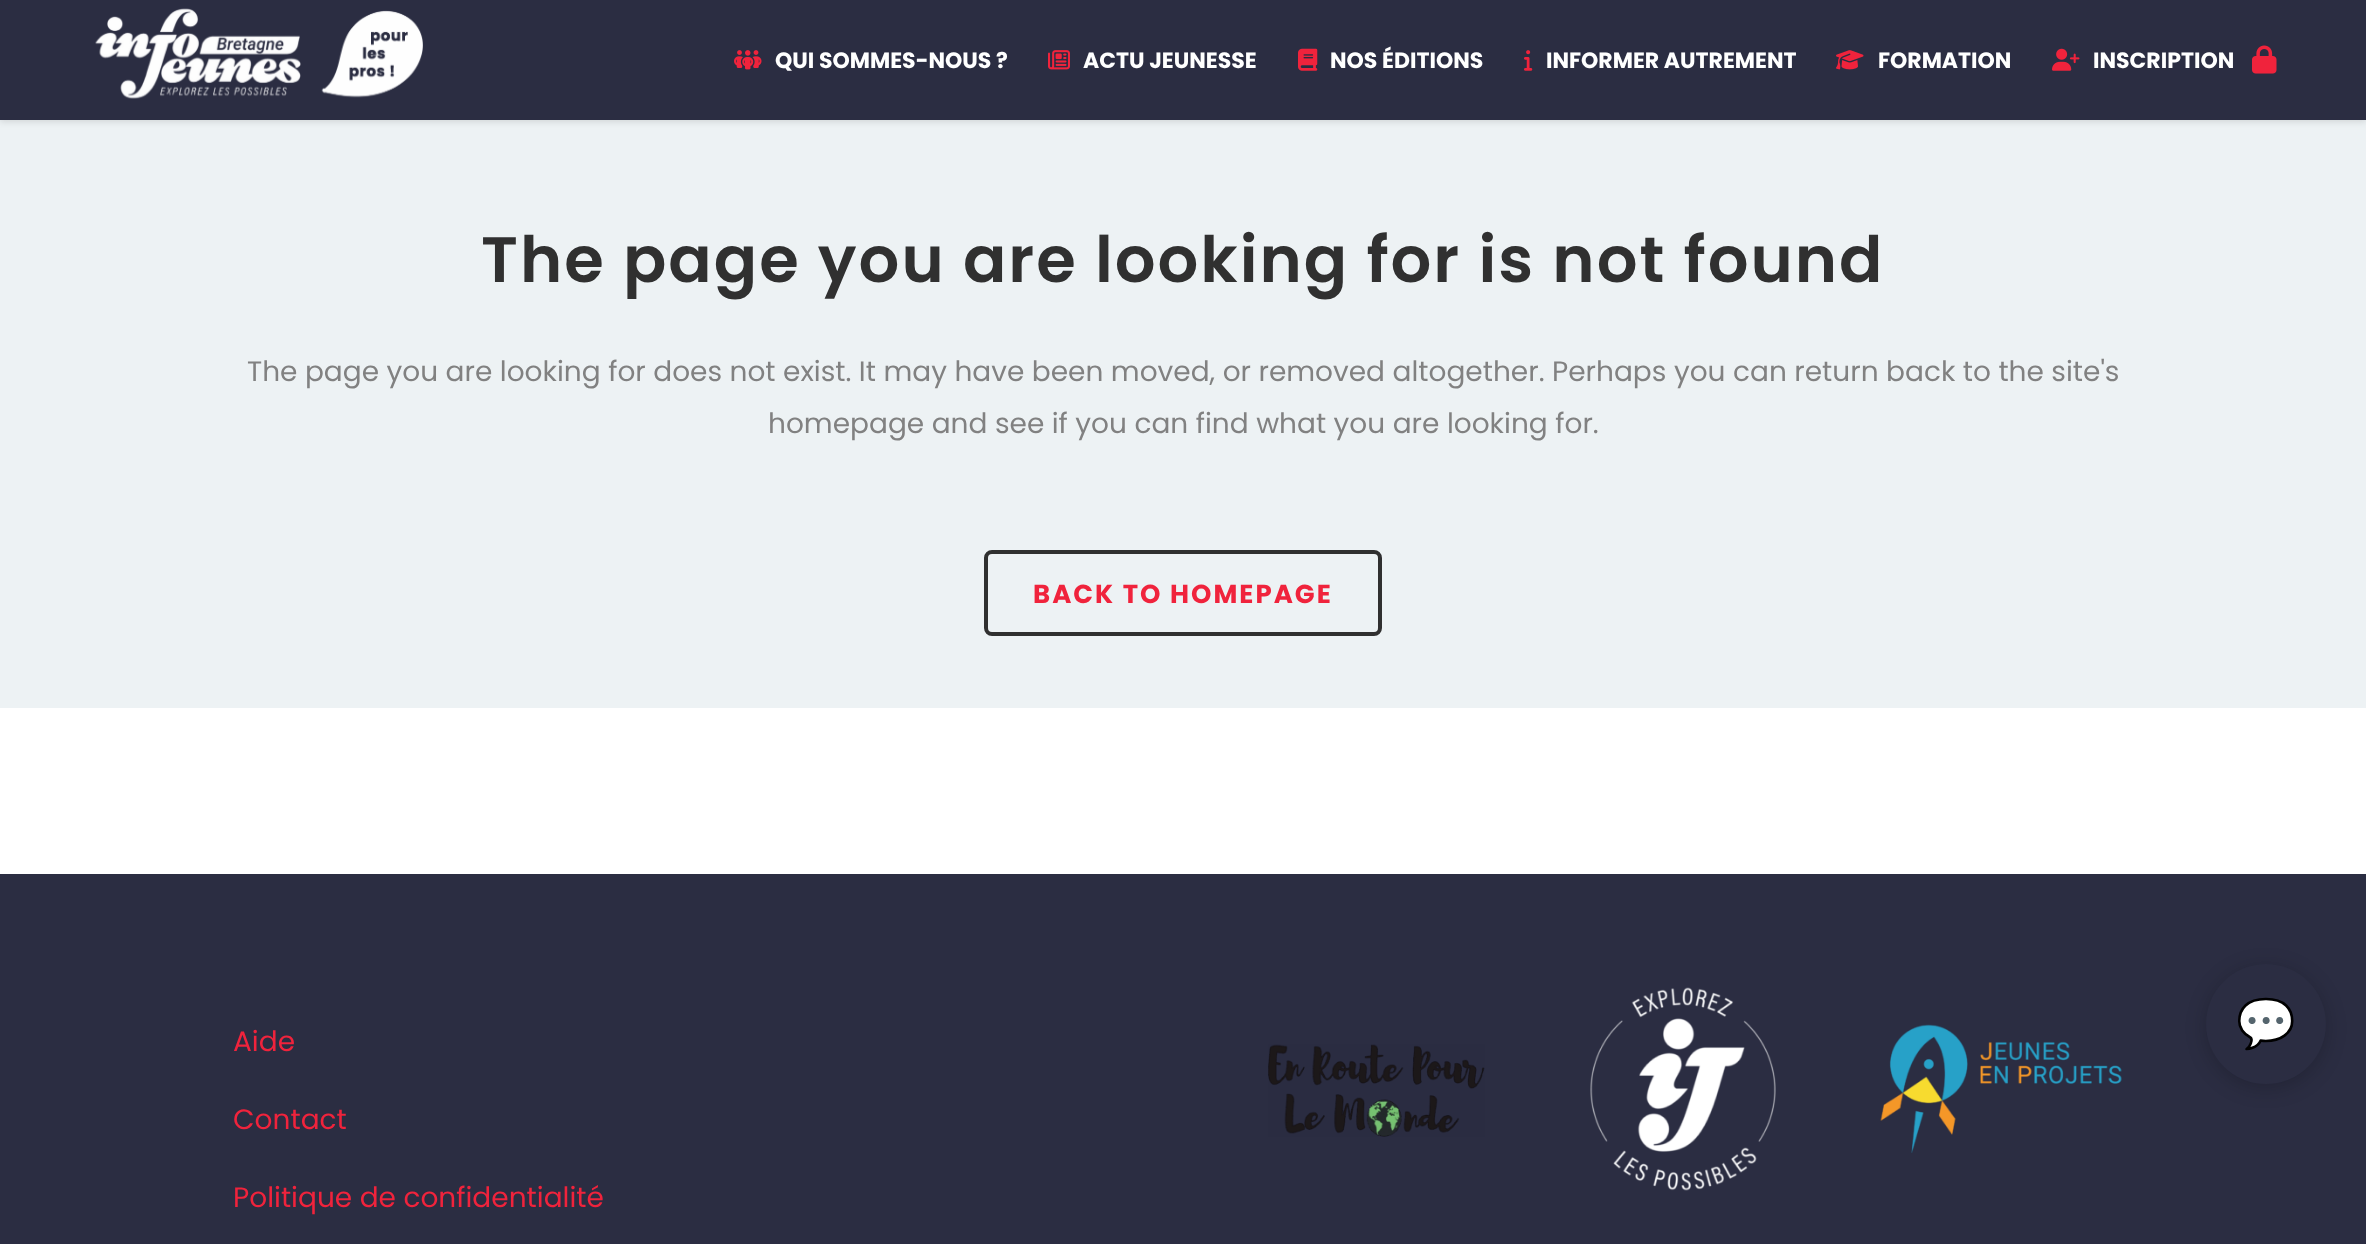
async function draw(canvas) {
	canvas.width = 2366;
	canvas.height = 1244;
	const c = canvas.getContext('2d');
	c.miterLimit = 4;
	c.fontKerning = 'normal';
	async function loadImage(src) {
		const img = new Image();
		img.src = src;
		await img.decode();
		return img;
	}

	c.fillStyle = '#fff';
	c.fillRect(0, 0, 2366, 1244);
	c.fillStyle = '#edf2f4';
	c.fillRect(0, 120, 2366, 588);
	c.fillStyle = '#0000001c';
	c.filter = 'blur(3px)';
	c.beginPath();
	c.rect(0, 2, 2366, 120);
	c.fill();
	c.filter = 'none';
	c.fillStyle = '#2b2d42';
	c.fillRect(0, 0, 2366, 120);
	c.drawImage(await loadImage('img1.png'), 95, 8, 328, 91);
	c.drawImage(await loadImage('img2.png'), 734, 50, 28, 20);
	c.font = 'bold 22px Poppins';
	c.fillStyle = '#fff';
	c.fillText('QUI SOMMES-NOUS ?', 775, 68);
	c.drawImage(await loadImage('img3.png'), 1048, 50, 22, 20);
	c.fillText('ACTU JEUNESSE', 1083, 68);
	c.drawImage(await loadImage('img4.png'), 1298, 48, 20, 23);
	c.fillText('NOS ÉDITIONS', 1330, 68);
	c.drawImage(await loadImage('img5.png'), 1524, 50, 9, 21);
	c.fillText('INFORMER AUTREMENT', 1546, 68);
	c.drawImage(await loadImage('img6.png'), 1836, 50, 28, 20);
	c.fillText('FORMATION', 1878, 68);
	c.drawImage(await loadImage('img7.png'), 2052, 48, 28, 23);
	c.fillText('INSCRIPTION', 2093, 68);
	c.drawImage(await loadImage('img8.png'), 2252, 45, 25, 29);
	c.letterSpacing = '2px';
	c.font = '600 64px Poppins';
	c.fillStyle = '#303030';
	c.fillText('The page you are looking for is not found', 481, 282);
	c.letterSpacing = '0px';
	c.font = '28px Poppins';
	c.fillStyle = '#818181';
	c.fillText('The page you are looking for does not exist. It may have been moved, or removed altogether. Perhaps you can return back to the site\'s', 247, 381);
	c.fillText('homepage and see if you can find what you are looking for.', 768, 433);
	c.beginPath();
	c.roundRect(986, 552, 394, 82, 6);
	c.strokeStyle = '#303030';
	c.lineWidth = 4;
	c.stroke();
	c.letterSpacing = '2px';
	c.font = 'bold 26px Poppins';
	c.fillStyle = '#f0233c';
	c.fillText('BACK TO HOMEPAGE', 1033, 603);
	c.fillStyle = '#2b2d42';
	c.fillRect(0, 874, 2366, 370);
	c.letterSpacing = '0px';
	c.font = '28px Poppins';
	c.fillStyle = '#f0233c';
	for (const [text, x, y] of [
		['Aide', 233, 1051],
		['Contact', 233, 1129],
		['Politique de confidentialité', 233, 1207],
	]) {
		c.fillText(text, x, y);
	}
	c.drawImage(await loadImage('img9.png'), 1268, 1044, 217, 93);
	c.drawImage(await loadImage('img10.png'), 1590, 987, 186, 204);
	c.drawImage(await loadImage('img11.png'), 1880, 1024, 242, 129);
	c.fillStyle = '#00000033';
	c.filter = 'blur(10px)';
	c.beginPath();
	c.roundRect(2206, 968, 120, 120, 60);
	c.fill();
	c.filter = 'none';
	c.fillStyle = '#2b2d42';
	c.beginPath();
	c.arc(2266, 1024, 60, 0, 2 * Math.PI);
	c.fill();
	c.font = '48px Noto Color Emoji';
	c.fillStyle = '#fff';
	c.fillText('💬', 2236, 1040);
}

draw(document.querySelector('canvas'));
